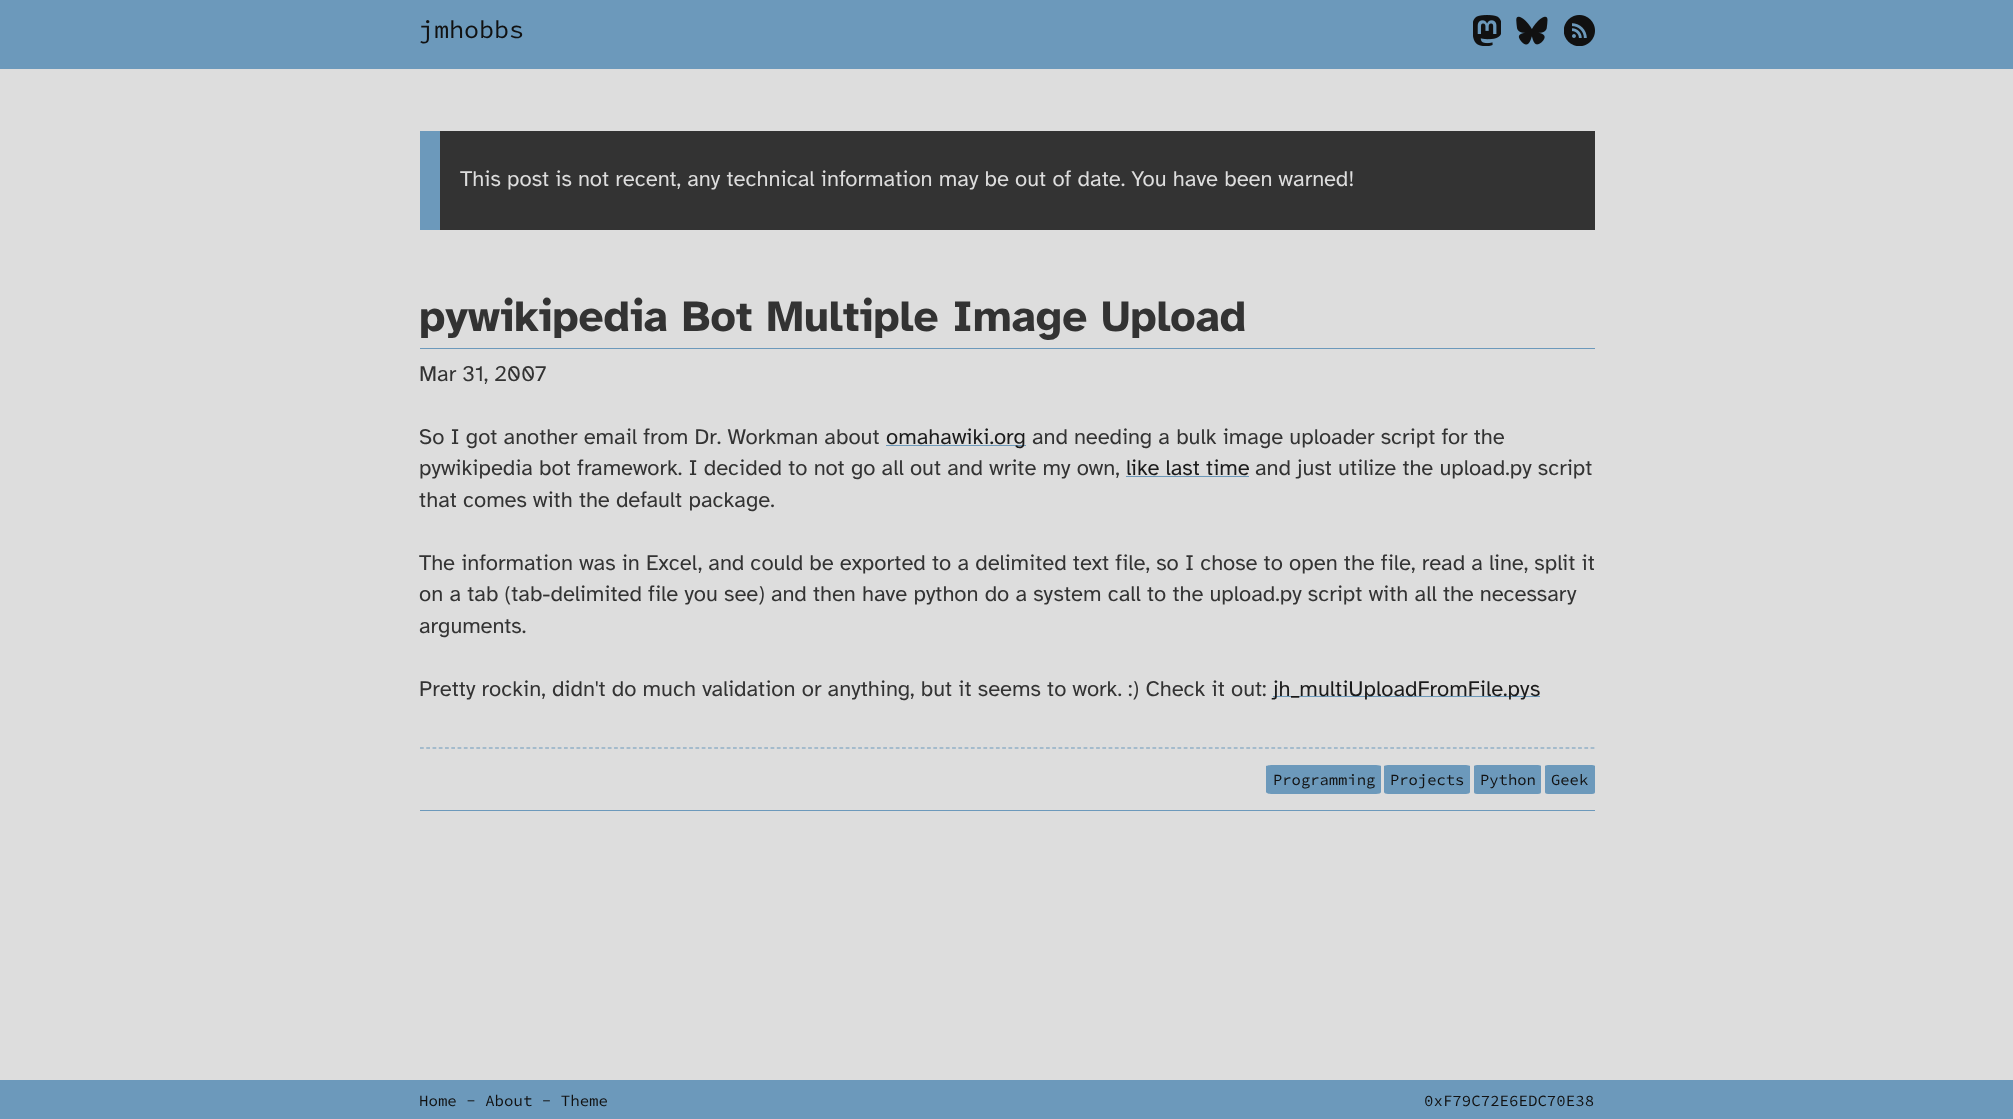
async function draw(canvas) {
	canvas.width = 2013;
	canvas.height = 1119;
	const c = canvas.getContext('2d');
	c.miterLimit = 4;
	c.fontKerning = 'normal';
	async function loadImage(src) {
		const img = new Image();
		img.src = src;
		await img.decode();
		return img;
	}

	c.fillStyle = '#ddd';
	c.fillRect(0, 0, 2013, 1119);
	c.fillStyle = '#6c99bb';
	c.fillRect(0, 0, 2013, 69);
	c.font = '25px Source Code Pro';
	c.fillStyle = '#111';
	c.fillText('jmhobbs', 419, 38);
	c.drawImage(await loadImage('img1.png'), 1473, 15, 28, 31);
	c.drawImage(await loadImage('img2.png'), 1516, 16, 32, 29);
	c.drawImage(await loadImage('img3.png'), 1564, 15, 31, 31);
	c.fillStyle = '#333';
	c.fillRect(440, 131, 1155, 99);
	c.fillStyle = '#6c99bb';
	c.fillRect(420, 131, 20, 99);
	c.font = '22.05px Atkinson Hyperlegible';
	c.fillStyle = '#ddd';
	c.fillText('This post is not recent, any technical information may be out of date. You have been warned!', 460, 186);
	c.fillStyle = '#6c99bb';
	c.fillRect(420, 348, 1175, 1);
	c.font = 'bold 44.1px Atkinson Hyperlegible';
	c.fillStyle = '#333';
	c.fillText('pywikipedia Bot Multiple Image Upload', 419, 331);
	c.font = '22.05px Atkinson Hyperlegible';
	c.fillText('Mar 31, 2007', 419, 381);
	c.fillText('So I got another email from Dr. Workman about', 419, 444);
	c.fillStyle = '#6c99bb';
	c.fillRect(886, 445, 140, 1);
	c.fillStyle = '#1a1a1a';
	c.fillText('omahawiki.org', 886, 444);
	c.fillStyle = '#333';
	c.fillText('and needing a bulk image uploader script for the', 1032, 444);
	c.fillText('pywikipedia bot framework. I decided to not go all out and write my own,', 419, 475);
	c.fillStyle = '#1a1a1a';
	c.fillText('like last time', 1126, 475);
	c.fillStyle = '#6c99bb';
	c.fillRect(1126, 476, 123, 1);
	c.fillStyle = '#333';
	for (const [text, x, y] of [
		['and just utilize the upload.py script', 1255, 475],
		['that comes with the default package.', 419, 507],
		['The information was in Excel, and could be exported to a delimited text file, so I chose to open the file, read a line, split it', 419, 570],
		['on a tab (tab-delimited file you see) and then have python do a system call to the upload.py script with all the necessary', 419, 601],
		['arguments.', 419, 633],
		['Pretty rockin, didn\'t do much validation or anything, but it seems to work. :) Check it out:', 419, 696],
	]) {
		c.fillText(text, x, y);
	}
	c.fillStyle = '#6c99bb';
	c.fillRect(1273, 696, 267, 1);
	c.fillStyle = '#1a1a1a';
	c.fillText('jh_multiUploadFromFile.pys', 1273, 696);
	c.beginPath();
	c.moveTo(420, 748);
	c.lineTo(1595, 748);
	c.strokeStyle = '#6c99bb';
	c.lineWidth = 1.2;
	c.setLineDash([3.75, 2.51]);
	c.stroke();
	c.fillStyle = '#6c99bb';
	c.fillRect(420, 810, 1175, 1);
	c.beginPath();
	c.moveTo(1272, 765);
	c.lineTo(1376, 765);
	c.bezierCurveTo(1379, 765, 1381, 766, 1381, 766);
	c.lineTo(1381, 792);
	c.bezierCurveTo(1381, 793, 1379, 794, 1376, 794);
	c.lineTo(1272, 794);
	c.bezierCurveTo(1269, 794, 1266, 793, 1266, 792);
	c.lineTo(1266, 766);
	c.bezierCurveTo(1266, 766, 1269, 765, 1272, 765);
	c.closePath();
	c.fill();
	c.font = '15.5px Source Code Pro';
	c.fillStyle = '#111';
	c.fillText('Programming', 1273, 785);
	c.fillStyle = '#6c99bb';
	c.beginPath();
	c.moveTo(1388, 765);
	c.lineTo(1466, 765);
	c.bezierCurveTo(1468, 765, 1470, 766, 1470, 766);
	c.lineTo(1470, 792);
	c.bezierCurveTo(1470, 793, 1468, 794, 1466, 794);
	c.lineTo(1388, 794);
	c.bezierCurveTo(1386, 794, 1384, 793, 1384, 792);
	c.lineTo(1384, 766);
	c.bezierCurveTo(1384, 766, 1386, 765, 1388, 765);
	c.closePath();
	c.fill();
	c.fillStyle = '#111';
	c.fillText('Projects', 1390, 785);
	c.fillStyle = '#6c99bb';
	c.beginPath();
	c.moveTo(1477, 765);
	c.lineTo(1538, 765);
	c.bezierCurveTo(1540, 765, 1541, 766, 1541, 766);
	c.lineTo(1541, 792);
	c.bezierCurveTo(1541, 793, 1540, 794, 1538, 794);
	c.lineTo(1477, 794);
	c.bezierCurveTo(1475, 794, 1474, 793, 1474, 792);
	c.lineTo(1474, 766);
	c.bezierCurveTo(1474, 766, 1475, 765, 1477, 765);
	c.closePath();
	c.fill();
	c.fillStyle = '#111';
	c.fillText('Python', 1480, 785);
	c.fillStyle = '#6c99bb';
	c.beginPath();
	c.moveTo(1548, 765);
	c.lineTo(1592, 765);
	c.bezierCurveTo(1594, 765, 1595, 766, 1595, 766);
	c.lineTo(1595, 792);
	c.bezierCurveTo(1595, 793, 1594, 794, 1592, 794);
	c.lineTo(1548, 794);
	c.bezierCurveTo(1546, 794, 1545, 793, 1545, 792);
	c.lineTo(1545, 766);
	c.bezierCurveTo(1545, 766, 1546, 765, 1548, 765);
	c.closePath();
	c.fill();
	c.fillStyle = '#111';
	c.fillText('Geek', 1551, 785);
	c.fillStyle = '#6c99bb';
	c.fillRect(0, 1080, 2013, 39);
	c.font = '15.75px Source Code Pro';
	c.fillStyle = '#111';
	c.fillText('Home - About - Theme', 419, 1106);
	c.fillText('0xF79C72E6EDC70E38', 1424, 1106);
}

draw(document.querySelector('canvas'));
